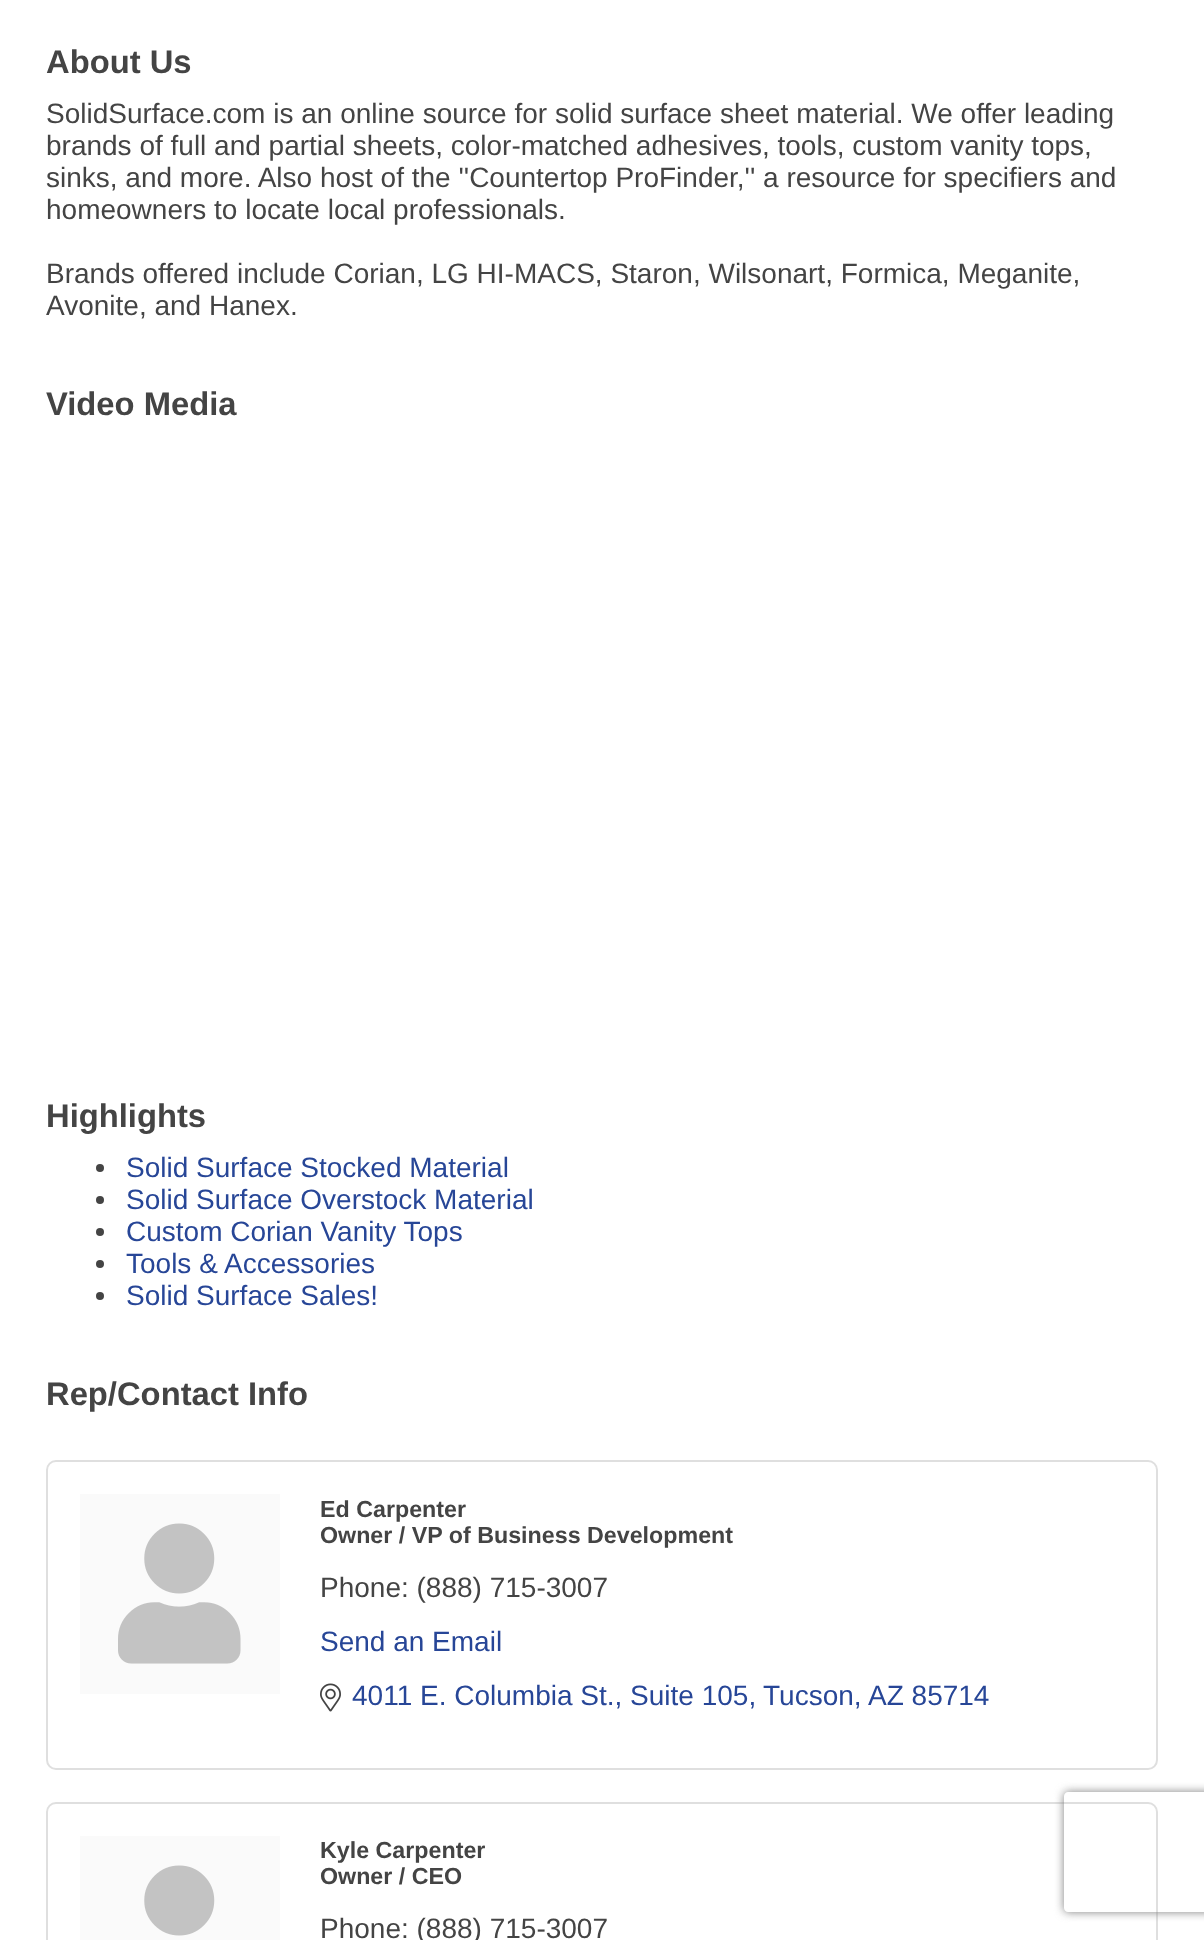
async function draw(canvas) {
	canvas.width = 1204;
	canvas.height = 1940;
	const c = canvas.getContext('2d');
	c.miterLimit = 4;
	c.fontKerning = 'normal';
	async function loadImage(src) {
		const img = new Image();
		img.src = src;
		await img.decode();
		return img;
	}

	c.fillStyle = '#fff';
	c.fillRect(0, 0, 1204, 1940);
	c.font = 'bold 32.75px Liberation Sans';
	c.fillStyle = '#444';
	c.fillText('About Us', 46, 73);
	c.font = '28px Liberation Sans';
	for (const [text, x, y] of [
		['SolidSurface.com is an online source for solid surface sheet material. We offer leading', 46, 123],
		['brands of full and partial sheets, color-matched adhesives, tools, custom vanity tops,', 46, 155],
		['sinks, and more. Also host of the \'\'Countertop ProFinder,\'\' a resource for specifiers and', 46, 187],
		['homeowners to locate local professionals.', 46, 219],
		['Brands offered include Corian, LG HI-MACS, Staron, Wilsonart, Formica, Meganite,', 46, 283],
		['Avonite, and Hanex.', 46, 315],
	]) {
		c.fillText(text, x, y);
	}
	c.font = 'bold 32.75px Liberation Sans';
	c.fillText('Video Media', 46, 415);
	c.fillText('Highlights', 46, 1127);
	c.beginPath();
	c.arc(100, 1168, 4, 0, 2 * Math.PI);
	c.fill();
	c.font = '28px Liberation Sans';
	c.fillStyle = '#274697';
	c.fillText('Solid Surface Stocked Material', 126, 1177);
	c.fillStyle = '#444';
	c.beginPath();
	c.arc(100, 1200, 4, 0, 2 * Math.PI);
	c.fill();
	c.fillStyle = '#274697';
	c.fillText('Solid Surface Overstock Material', 126, 1209);
	c.fillStyle = '#444';
	c.beginPath();
	c.arc(100, 1232, 4, 0, 2 * Math.PI);
	c.fill();
	c.fillStyle = '#274697';
	c.fillText('Custom Corian Vanity Tops', 126, 1241);
	c.fillStyle = '#444';
	c.beginPath();
	c.arc(100, 1264, 4, 0, 2 * Math.PI);
	c.fill();
	c.fillStyle = '#274697';
	c.fillText('Tools & Accessories', 126, 1273);
	c.fillStyle = '#444';
	c.beginPath();
	c.arc(100, 1296, 4, 0, 2 * Math.PI);
	c.fill();
	c.fillStyle = '#274697';
	c.fillText('Solid Surface Sales!', 126, 1305);
	c.font = 'bold 32.75px Liberation Sans';
	c.fillStyle = '#444';
	c.fillText('Rep/Contact Info', 46, 1405);
	c.beginPath();
	c.roundRect(47, 1461, 1110, 308, 9);
	c.strokeStyle = '#dfdfdf';
	c.lineWidth = 2;
	c.stroke();
	c.fillStyle = '#fafafa';
	c.fillRect(80, 1494, 200, 200);
	c.drawImage(await loadImage('img1.png'), 118, 1523, 123, 141);
	c.font = 'bold 23.25px Liberation Sans';
	c.fillStyle = '#444';
	c.fillText('Ed Carpenter', 320, 1517);
	c.fillText('Owner / VP of Business Development', 320, 1543);
	c.font = '28px Liberation Sans';
	c.fillText('Phone: (888) 715-3007', 320, 1597);
	c.fillStyle = '#274697';
	c.fillText('Send an Email', 320, 1651);
	c.drawImage(await loadImage('img2.png'), 320, 1683, 21, 29);
	for (const [text, x, y] of [
		['4011 E. Columbia St., Suite 105,', 352, 1705],
		['Tucson,', 763, 1705],
		['AZ 85714', 868, 1705],
	]) {
		c.fillText(text, x, y);
	}
	c.beginPath();
	c.roundRect(47, 1803, 1110, 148, 9);
	c.stroke();
	c.fillStyle = '#fafafa';
	c.fillRect(80, 1836, 200, 104);
	c.drawImage(await loadImage('img3.png'), 144, 1865, 71, 71);
	c.font = 'bold 23.25px Liberation Sans';
	c.fillStyle = '#444';
	c.fillText('Kyle Carpenter', 320, 1858);
	c.fillText('Owner / CEO', 320, 1884);
	c.font = '28px Liberation Sans';
	c.fillText('Phone: (888) 715-3007', 320, 1938);
	c.save();
	c.beginPath();
	c.moveTo(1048, 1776);
	c.lineTo(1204, 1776);
	c.lineTo(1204, 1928);
	c.lineTo(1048, 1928);
	c.closePath();
	c.moveTo(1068, 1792);
	c.lineTo(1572, 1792);
	c.bezierCurveTo(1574, 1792, 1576, 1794, 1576, 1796);
	c.lineTo(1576, 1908);
	c.bezierCurveTo(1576, 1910, 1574, 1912, 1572, 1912);
	c.lineTo(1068, 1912);
	c.bezierCurveTo(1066, 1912, 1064, 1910, 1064, 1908);
	c.lineTo(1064, 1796);
	c.bezierCurveTo(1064, 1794, 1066, 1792, 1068, 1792);
	c.closePath();
	c.clip('evenodd');
	c.fillStyle = '#808080';
	c.filter = 'blur(5px)';
	c.beginPath();
	c.roundRect(1064, 1792, 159, 120, 4);
	c.fill();
	c.filter = 'none';
	c.restore();
}

draw(document.querySelector('canvas'));
